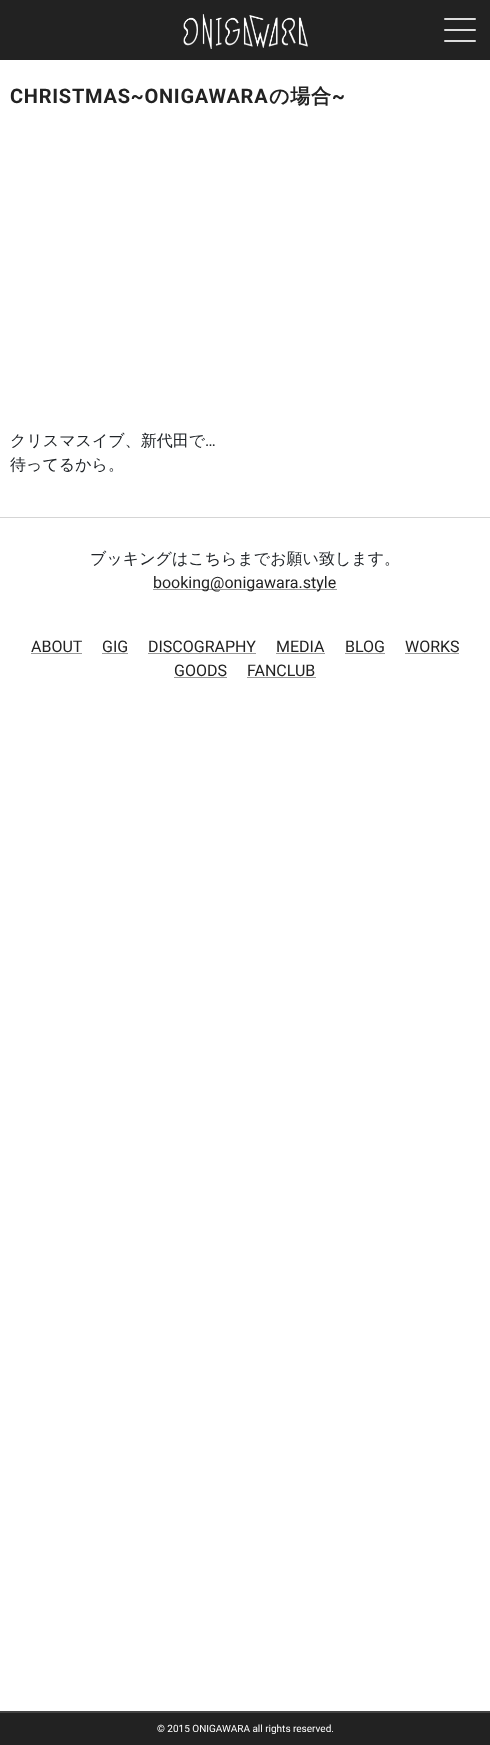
async function draw(canvas) {
	canvas.width = 490;
	canvas.height = 1745;
	const c = canvas.getContext('2d');
	c.miterLimit = 4;
	c.fontKerning = 'normal';
	async function loadImage(src) {
		const img = new Image();
		img.src = src;
		await img.decode();
		return img;
	}

	c.fillStyle = '#fff';
	c.fillRect(0, 0, 490, 1745);
	c.fillStyle = '#222';
	c.fillRect(0, 0, 490, 60);
	c.drawImage(await loadImage('img1.png'), 183, 14, 125, 35);
	c.fillStyle = '#ddd';
	c.beginPath();
	c.roundRect(444, 18, 32, 2, 1);
	c.fill();
	c.beginPath();
	c.roundRect(444, 29, 32, 2, 1);
	c.fill();
	c.beginPath();
	c.roundRect(444, 40, 32, 2, 1);
	c.fill();
	c.letterSpacing = '0.75px';
	c.font = 'bold 20px Roboto';
	c.fillStyle = '#222';
	c.fillText('CHRISTMAS~ONIGAWARA', 10, 103);
	c.font = 'bold 20px WenQuanYi Zen Hei';
	c.fillText('の場合', 269, 103);
	c.font = 'bold 20px Roboto';
	c.fillText('~', 332, 103);
	c.letterSpacing = '0px';
	c.font = '500 16px WenQuanYi Zen Hei';
	c.fillStyle = '#212529';
	c.fillText('クリスマスイブ、新代田で', 10, 446);
	c.font = '16px Roboto';
	c.fillText('…', 205, 446);
	c.font = '500 16px WenQuanYi Zen Hei';
	c.fillText('待ってるから。', 10, 470);
	c.fillStyle = '#d5d5d5';
	c.fillRect(0, 517, 490, 1);
	c.fillStyle = '#212529';
	c.fillText('ブッキングはこちらまでお願い致します。', 90, 564);
	c.fillStyle = '#999';
	c.fillRect(153, 589, 184, 1);
	c.font = '16px Roboto';
	c.fillStyle = '#222';
	c.fillText('booking@onigawara.style', 153, 588);
	c.fillText('ABOUT', 31, 652);
	c.fillStyle = '#999';
	c.fillRect(31, 653, 51, 1);
	c.fillStyle = '#222';
	c.fillText('GIG', 102, 652);
	c.fillStyle = '#999';
	c.fillRect(102, 653, 26, 1);
	c.fillStyle = '#222';
	c.fillText('DISCOGRAPHY', 148, 652);
	c.fillStyle = '#999';
	c.fillRect(148, 653, 108, 1);
	c.fillStyle = '#222';
	c.fillText('MEDIA', 276, 652);
	c.fillStyle = '#999';
	c.fillRect(276, 653, 49, 1);
	c.fillStyle = '#222';
	c.fillText('BLOG', 345, 652);
	c.fillStyle = '#999';
	c.fillRect(345, 653, 40, 1);
	c.fillStyle = '#222';
	c.fillText('WORKS', 405, 652);
	c.fillStyle = '#999';
	c.fillRect(405, 653, 54, 1);
	c.fillStyle = '#222';
	c.fillText('GOODS', 174, 676);
	c.fillStyle = '#999';
	c.fillRect(174, 677, 53, 1);
	c.fillStyle = '#222';
	c.fillText('FANCLUB', 247, 676);
	for (const [x, y, w, h, color] of [
		[247, 677, 69, 1, '#999'],
		[0, 1713, 490, 32, '#222'],
		[0, 1711, 490, 2, '#434343'],
	]) {
		c.fillStyle = color;
		c.fillRect(x, y, w, h);
	}
	c.font = '10px Roboto';
	c.fillStyle = '#fff';
	c.fillText('© 2015 ONIGAWARA all rights reserved.', 157, 1732);
}

draw(document.querySelector('canvas'));
